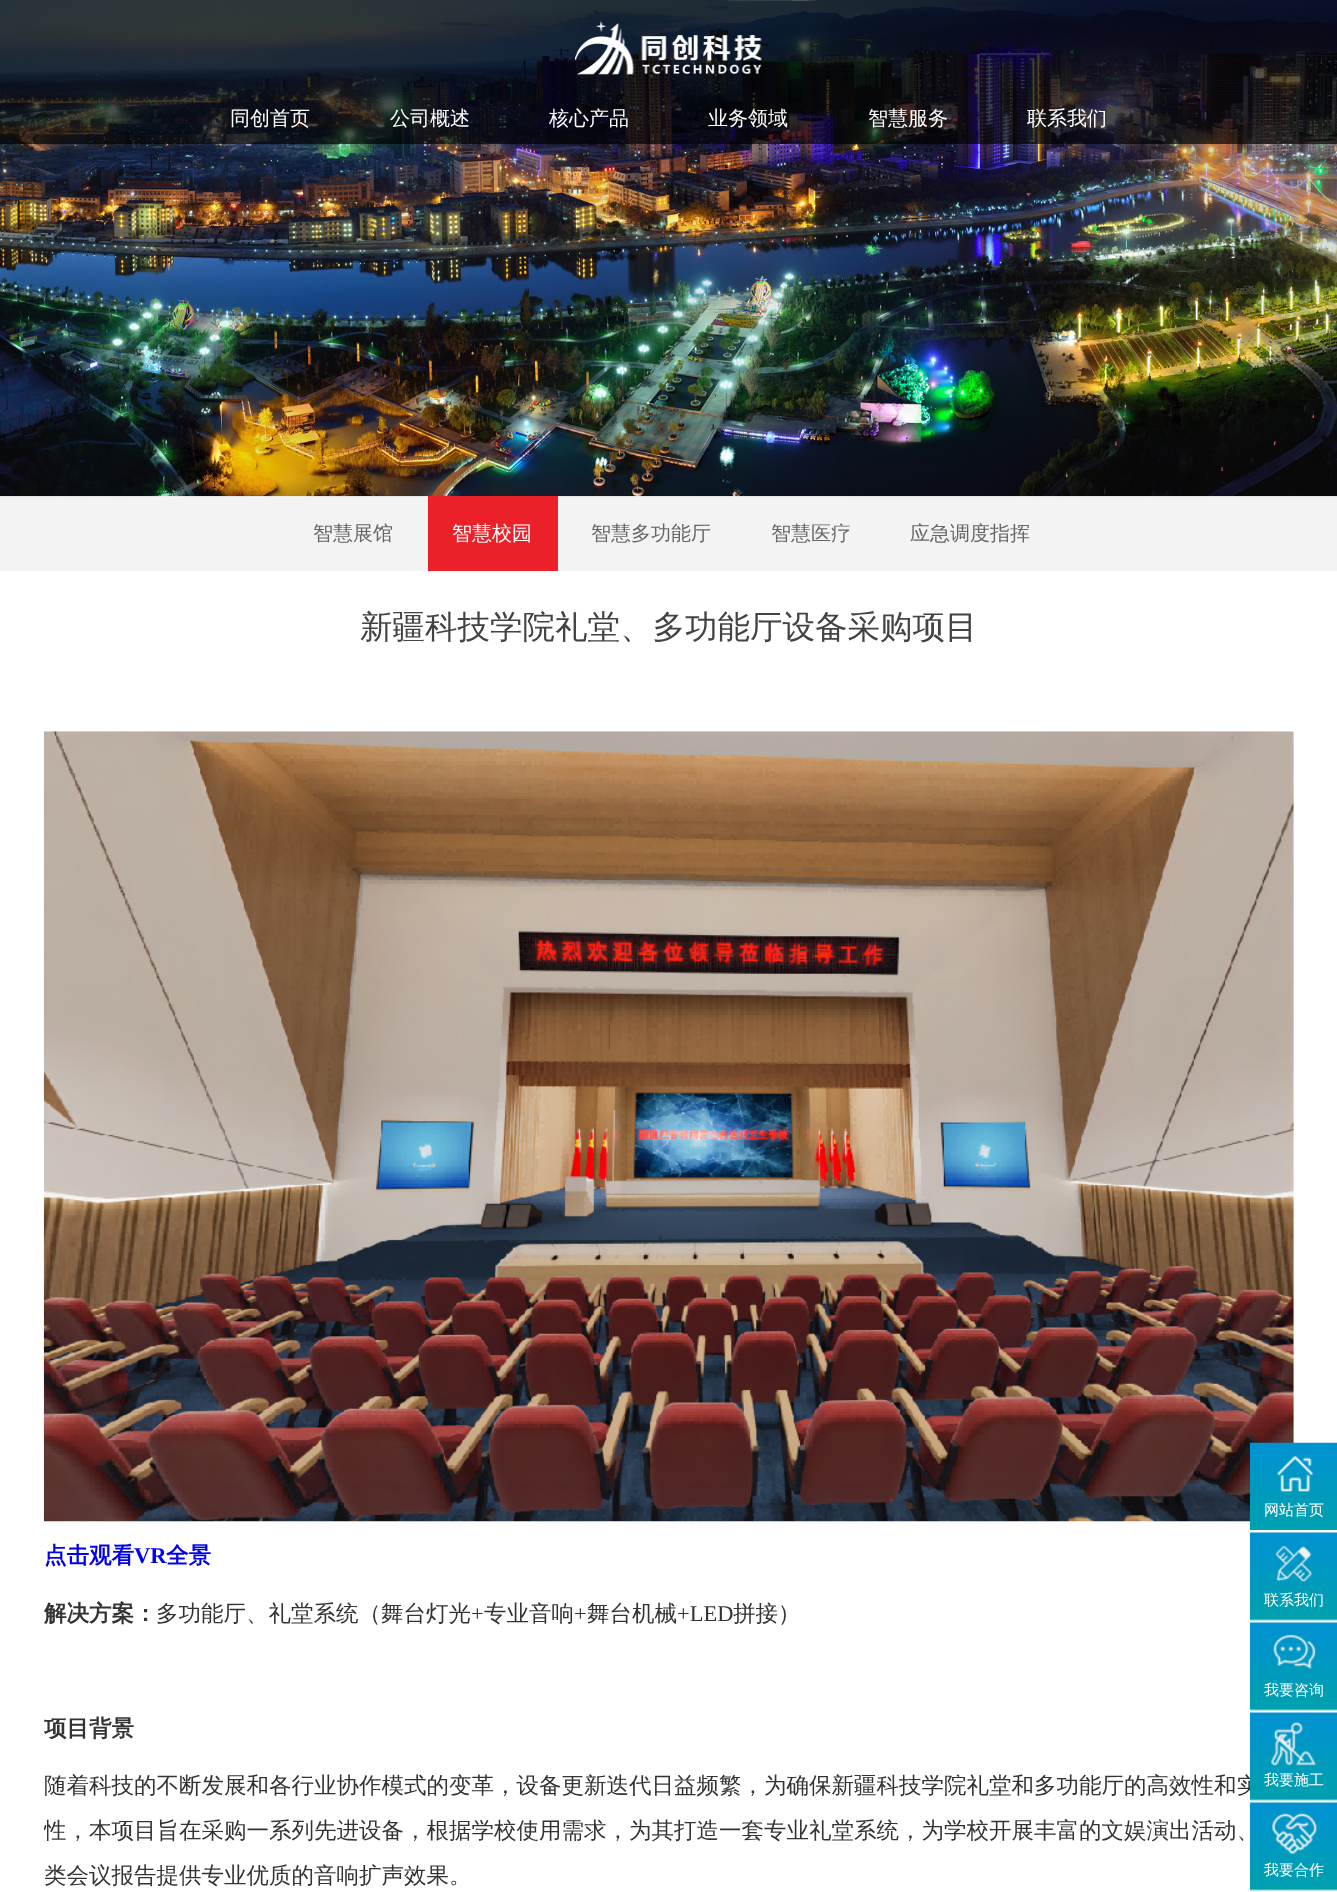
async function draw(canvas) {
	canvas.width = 1337;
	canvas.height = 1892;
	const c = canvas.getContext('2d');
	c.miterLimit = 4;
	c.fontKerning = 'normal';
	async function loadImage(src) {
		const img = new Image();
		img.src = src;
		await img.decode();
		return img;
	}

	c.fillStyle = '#fff';
	c.fillRect(0, 0, 1337, 1892);
	c.fillStyle = '#f3f3f3';
	c.fillRect(0, 496, 1337, 75);
	c.drawImage(await loadImage('img2.png'), 0, 0, 1337, 497);
	c.fillStyle = '#000000ab';
	c.fillRect(0, 0, 1337, 144);
	c.drawImage(await loadImage('img1.png'), 575, 21, 187, 54);
	c.font = '500 20px WenQuanYi Zen Hei';
	c.fillStyle = '#fff';
	for (const [text, x, y] of [
		['同创首页', 230, 125],
		['公司概述', 390, 125],
		['核心产品', 549, 125],
		['业务领域', 708, 125],
		['智慧服务', 868, 125],
		['联系我们', 1027, 125],
	]) {
		c.fillText(text, x, y);
	}
	c.fillStyle = '#666';
	c.fillText('智慧展馆', 313, 540);
	c.fillStyle = '#ec2028';
	c.fillRect(428, 496, 130, 75);
	c.fillStyle = '#fff';
	c.fillText('智慧校园', 452, 540);
	c.fillStyle = '#666';
	for (const [text, x, y] of [
		['智慧多功能厅', 591, 540],
		['智慧医疗', 771, 540],
		['应急调度指挥', 910, 540],
	]) {
		c.fillText(text, x, y);
	}
	c.font = '500 32.5px WenQuanYi Zen Hei';
	c.fillStyle = '#434343';
	c.fillText('新疆科技学院礼堂、多功能厅设备采购项目', 360, 638);
	c.drawImage(await loadImage('img3.png'), 43, 731, 1251, 791);
	c.font = 'bold 22.5px WenQuanYi Zen Hei';
	c.fillStyle = '#00e';
	c.fillText('点击观看', 44, 1563);
	c.font = 'bold 22.5px Liberation Serif';
	c.fillText('VR', 134, 1563);
	c.font = 'bold 22.5px WenQuanYi Zen Hei';
	c.fillText('全景', 166, 1563);
	c.fillStyle = '#333';
	c.fillText('解决方案：', 44, 1621);
	c.font = '500 22.5px WenQuanYi Zen Hei';
	c.fillText('多功能厅、礼堂系统（舞台灯光', 156, 1621);
	c.font = '22.5px Liberation Serif';
	c.fillText('+', 471, 1621);
	c.font = '500 22.5px WenQuanYi Zen Hei';
	c.fillText('专业音响', 484, 1621);
	c.font = '22.5px Liberation Serif';
	c.fillText('+', 574, 1621);
	c.font = '500 22.5px WenQuanYi Zen Hei';
	c.fillText('舞台机械', 587, 1621);
	c.font = '22.5px Liberation Serif';
	c.fillText('+LED', 677, 1621);
	c.font = '500 22.5px WenQuanYi Zen Hei';
	c.fillText('拼接）', 733, 1621);
	c.font = 'bold 22.5px WenQuanYi Zen Hei';
	c.fillText('项目背景', 44, 1736);
	c.font = '500 22.5px WenQuanYi Zen Hei';
	c.fillText('随着科技的不断发展和各行业协作模式的变革，设备更新迭代日益频繁，为确保新疆科技学院礼堂和多功能厅的高效性和实', 44, 1793);
	c.save();
	c.beginPath();
	c.rect(44, 731, 1250, 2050);
	c.clip();
	c.fillText('性，本项目旨在采购一系列先进设备，根据学校使用需求，为其打造一套专业礼堂系统，为学校开展丰富的文娱演出活动、', 44, 1838);
	c.restore();
	c.fillText('类会议报告提供专业优质的音响扩声效果。', 44, 1883);
	c.drawImage(await loadImage('img4.png'), 1250, 1442, 87, 88);
	c.drawImage(await loadImage('img5.png'), 1277, 1456, 36, 36);
	c.font = '500 15px WenQuanYi Zen Hei';
	c.fillStyle = '#fff';
	c.fillText('网站首页', 1264, 1515);
	c.drawImage(await loadImage('img6.png'), 1250, 1532, 87, 89);
	c.drawImage(await loadImage('img7.png'), 1276, 1546, 36, 36);
	c.fillText('联系我们', 1264, 1605);
	c.drawImage(await loadImage('img8.png'), 1250, 1622, 87, 89);
	c.drawImage(await loadImage('img9.png'), 1273, 1634, 43, 35);
	c.fillText('我要咨询', 1264, 1695);
	c.drawImage(await loadImage('img8.png'), 1250, 1712, 87, 89);
	c.drawImage(await loadImage('img10.png'), 1271, 1722, 46, 44);
	c.fillText('我要施工', 1264, 1785);
	c.drawImage(await loadImage('img8.png'), 1250, 1802, 87, 89);
	c.drawImage(await loadImage('img11.png'), 1272, 1813, 45, 41);
	c.fillText('我要合作', 1264, 1875);
}

draw(document.querySelector('canvas'));
